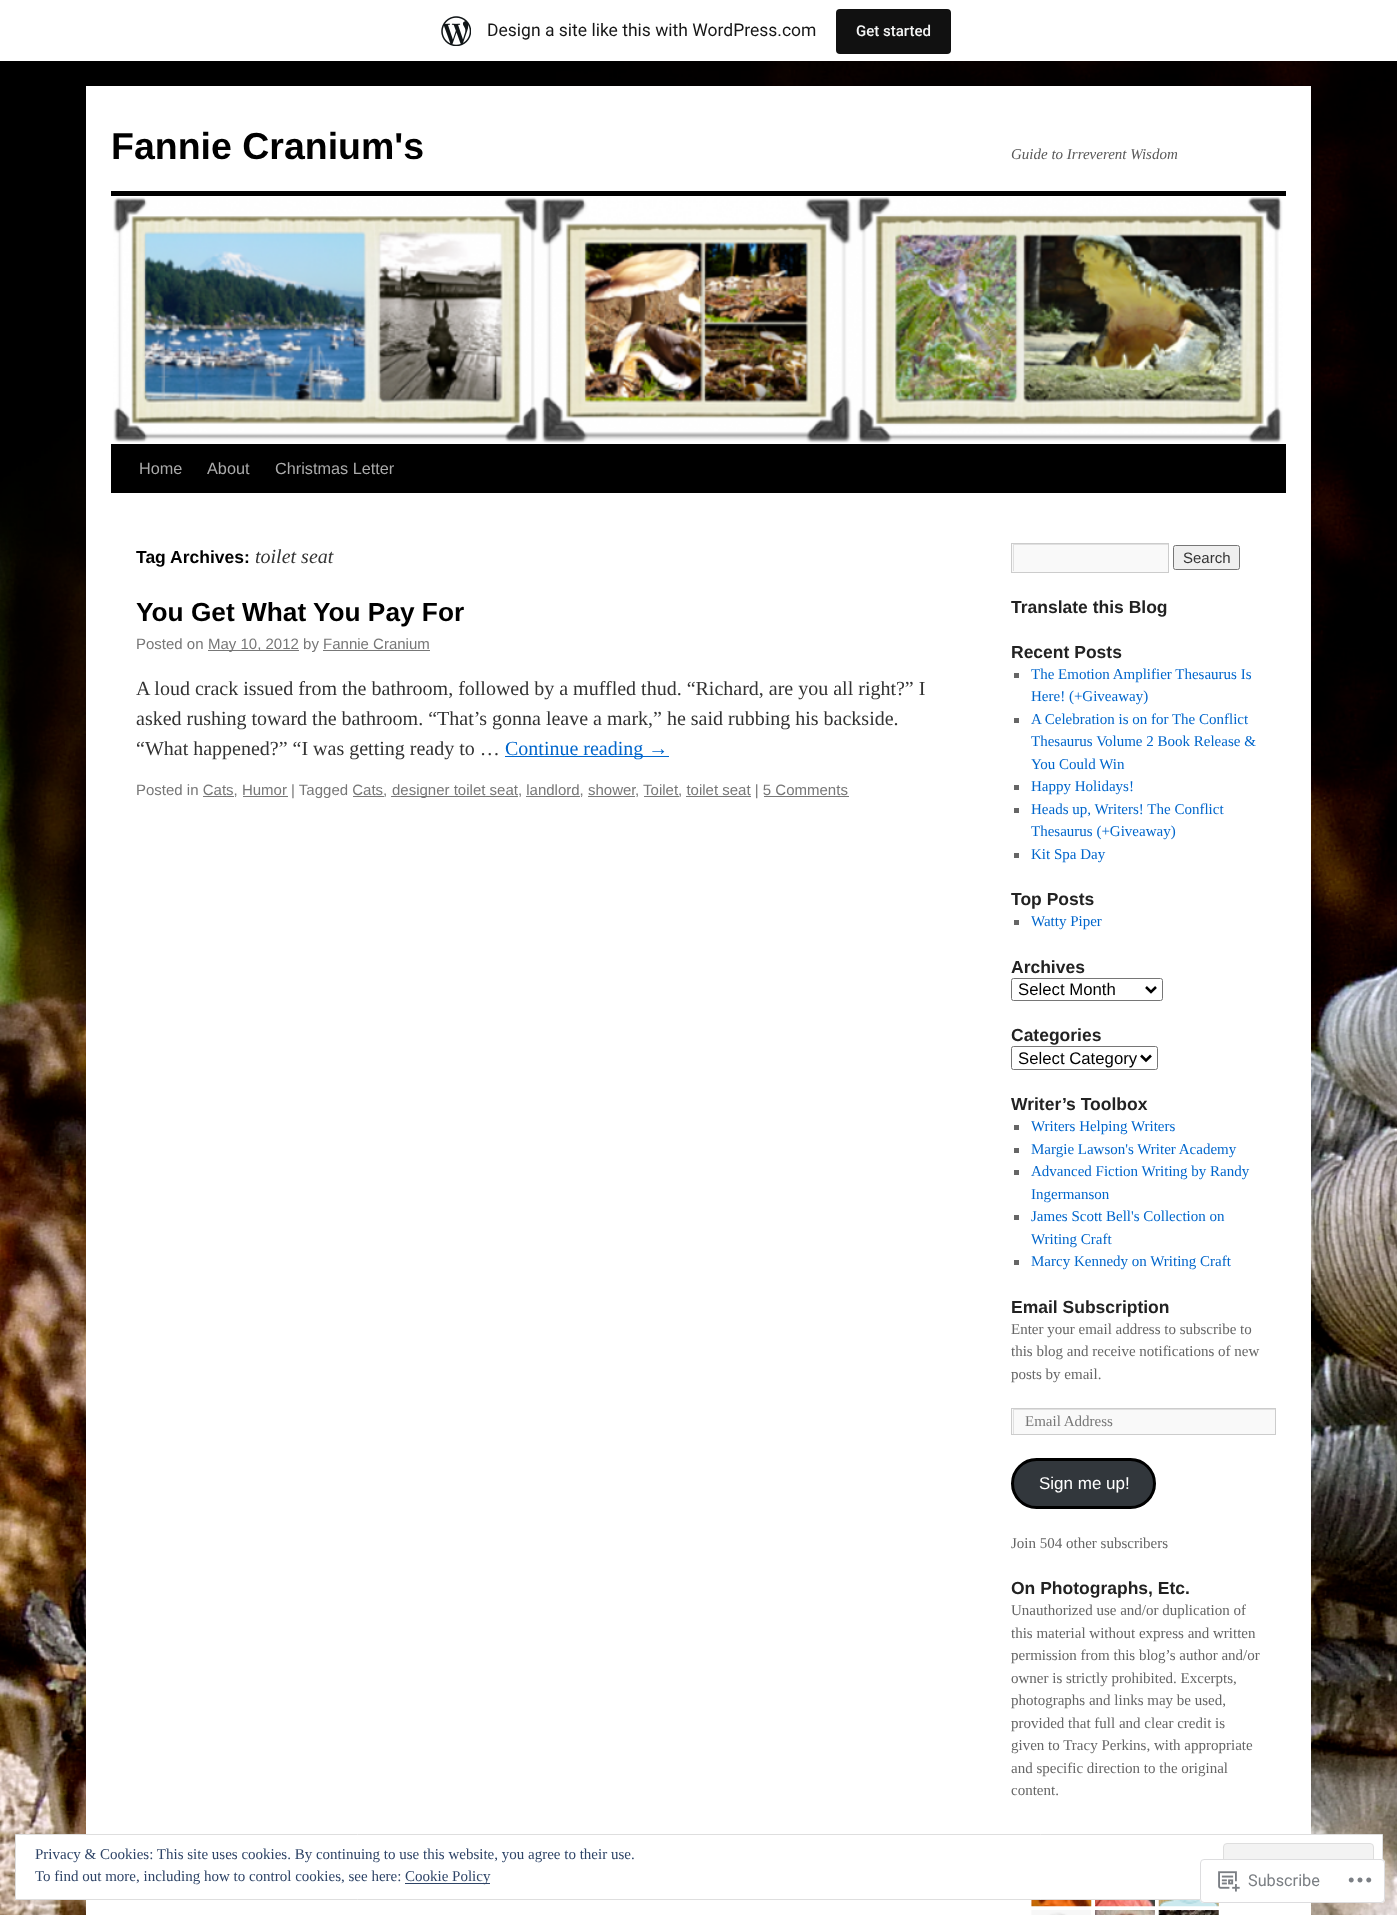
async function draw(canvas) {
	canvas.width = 1397;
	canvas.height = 1915;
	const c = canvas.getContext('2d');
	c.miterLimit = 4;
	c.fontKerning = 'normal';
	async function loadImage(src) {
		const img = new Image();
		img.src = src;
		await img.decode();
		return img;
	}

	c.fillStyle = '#fff';
	c.fillRect(0, 0, 1397, 1915);
	c.drawImage(await loadImage('img1.png'), 0, 61, 1397, 1854);
	c.drawImage(await loadImage('img2.png'), 441, 16, 30, 30);
	c.font = '17.5px Roboto';
	c.fillStyle = '#171717';
	c.fillText('Design a site like this with WordPress.com', 487, 36);
	c.fillStyle = '#111';
	c.beginPath();
	c.roundRect(836, 9, 115, 45, 4);
	c.fill();
	c.font = '500 15px Roboto';
	c.fillStyle = '#f6f7f7';
	c.fillText('Get started', 856, 36);
	c.fillStyle = '#fff';
	c.fillRect(86, 86, 1225, 1829);
	c.font = 'bold 37.5px Liberation Sans';
	c.fillStyle = '#000';
	c.fillText('Fannie Cranium\'s', 111, 159);
	c.font = 'italic 15px Liberation Serif';
	c.fillStyle = '#595959';
	c.fillText('Guide to Irreverent Wisdom', 1011, 159);
	c.fillStyle = '#000';
	c.fillRect(111, 191, 1175, 5);
	c.fillRect(111, 444, 1175, 49);
	c.drawImage(await loadImage('img3.png'), 113, 197, 1170, 246);
	c.font = '16.25px Liberation Sans';
	c.fillStyle = '#aaa';
	for (const [text, x, y] of [
		['Home', 139, 474],
		['About', 207, 474],
		['Christmas Letter', 275, 474],
	]) {
		c.fillText(text, x, y);
	}
	c.font = 'bold 17.5px Liberation Sans';
	c.fillStyle = '#000';
	c.fillText('Tag Archives:', 136, 563);
	c.font = 'italic 20px Liberation Serif';
	c.fillStyle = '#333';
	c.fillText('toilet seat', 255, 563);
	c.font = 'bold 26.25px Liberation Sans';
	c.fillStyle = '#000';
	c.fillText('You Get What You Pay For', 136, 621);
	c.font = '15px Liberation Sans';
	c.fillStyle = '#777';
	c.fillText('Posted on', 136, 649);
	c.fillRect(208, 650, 91, 1);
	c.fillText('May 10, 2012 by Fannie Cranium', 208, 649);
	c.fillRect(323, 650, 107, 1);
	c.font = '20px Liberation Serif';
	c.fillStyle = '#333';
	for (const [text, x, y] of [
		['A loud crack issued from the bathroom, followed by a muffled thud. “Richard, are you all right?” I', 136, 695],
		['asked rushing toward the bathroom. “That’s gonna leave a mark,” he said rubbing his backside.', 136, 725],
		['“What happened?” “I was getting ready to …', 136, 755],
	]) {
		c.fillText(text, x, y);
	}
	c.fillStyle = '#06c';
	c.fillRect(505, 756, 164, 1);
	c.fillText('Continue reading →', 505, 755);
	c.font = '15px Liberation Sans';
	c.fillStyle = '#777';
	c.fillText('Posted in Cats, Humor | Tagged Cats,', 136, 795);
	for (const [x, y, w, h, color] of [
		[203, 796, 31, 1, '#777'],
		[243, 796, 45, 1, '#777'],
		[391, 796, 127, 1, '#777'],
	]) {
		c.fillStyle = color;
		c.fillRect(x, y, w, h);
	}
	c.fillText('designer toilet seat, landlord, shower', 392, 795);
	for (const [x, y, w, h, color] of [
		[353, 796, 31, 1, '#777'],
		[526, 796, 54, 1, '#777'],
		[588, 796, 47, 1, '#777'],
	]) {
		c.fillStyle = color;
		c.fillRect(x, y, w, h);
	}
	c.fillText(', Toilet, toilet seat | 5 Comments', 635, 795);
	for (const [x, y, w, h, color] of [
		[644, 796, 35, 1, '#777'],
		[686, 796, 65, 1, '#777'],
		[764, 796, 85, 1, '#777'],
		[1012, 544, 156, 28, '#f9f9f9'],
	]) {
		c.fillStyle = color;
		c.fillRect(x, y, w, h);
	}
	c.save();
	c.beginPath();
	c.rect(1013, 544, 155, 27);
	c.clip();
	c.fillStyle = '#e0e0e0';
	c.beginPath();
	c.moveTo(889, 420);
	c.lineTo(1291, 420);
	c.lineTo(1291, 695);
	c.lineTo(889, 695);
	c.closePath();
	c.moveTo(1014, 545);
	c.lineTo(1169, 545);
	c.lineTo(1169, 572);
	c.lineTo(1014, 572);
	c.closePath();
	c.fill('evenodd');
	c.restore();
	c.strokeStyle = '#ccc';
	c.strokeRect(1011.5, 543.5, 157, 29);
	c.fillStyle = '#efefef';
	c.beginPath();
	c.roundRect(1173.5, 545.5, 66, 24, 2);
	c.fill();
	c.strokeStyle = '#767676';
	c.stroke();
	c.fillStyle = '#333';
	c.fillText('Search', 1183, 563);
	c.font = 'bold 17.5px Liberation Sans';
	c.fillStyle = '#222';
	c.fillText('Translate this Blog', 1011, 613);
	c.fillText('Recent Posts', 1011, 658);
	c.fillStyle = '#666';
	c.fillRect(1014, 673, 5, 5);
	c.font = '15px Liberation Serif';
	c.fillStyle = '#06c';
	c.fillText('The Emotion Amplifier Thesaurus Is', 1031, 679);
	c.fillText('Here! (+Giveaway)', 1031, 701);
	c.fillStyle = '#666';
	c.fillRect(1014, 718, 5, 5);
	c.fillStyle = '#06c';
	for (const [text, x, y] of [
		['A Celebration is on for The Conflict', 1031, 724],
		['Thesaurus Volume 2 Book Release &', 1031, 746],
		['You Could Win', 1031, 769],
	]) {
		c.fillText(text, x, y);
	}
	c.fillStyle = '#666';
	c.fillRect(1014, 785, 5, 5);
	c.fillStyle = '#06c';
	c.fillText('Happy Holidays!', 1031, 791);
	c.fillStyle = '#666';
	c.fillRect(1014, 808, 5, 5);
	c.fillStyle = '#06c';
	c.fillText('Heads up, Writers! The Conflict', 1031, 814);
	c.fillText('Thesaurus (+Giveaway)', 1031, 836);
	c.fillStyle = '#666';
	c.fillRect(1014, 853, 5, 5);
	c.fillStyle = '#06c';
	c.fillText('Kit Spa Day', 1031, 859);
	c.font = 'bold 17.5px Liberation Sans';
	c.fillStyle = '#222';
	c.fillText('Top Posts', 1011, 905);
	c.fillStyle = '#666';
	c.fillRect(1014, 920, 5, 5);
	c.font = '15px Liberation Serif';
	c.fillStyle = '#06c';
	c.fillText('Watty Piper', 1031, 926);
	c.font = 'bold 17.5px Liberation Sans';
	c.fillStyle = '#222';
	c.fillText('Archives', 1011, 973);
	c.beginPath();
	c.roundRect(1011.5, 978.5, 151, 22, 2);
	c.stroke();
	c.beginPath();
	c.moveTo(1146, 987);
	c.lineTo(1151, 992);
	c.lineTo(1156, 987);
	c.strokeStyle = '#000';
	c.lineWidth = 2.5;
	c.stroke();
	c.font = '16.75px Liberation Sans';
	c.fillStyle = '#000';
	c.fillText('Select Month', 1018, 995);
	c.font = 'bold 17.5px Liberation Sans';
	c.fillStyle = '#222';
	c.fillText('Categories', 1011, 1041);
	c.beginPath();
	c.roundRect(1011.5, 1046.5, 146, 23, 2);
	c.strokeStyle = '#767676';
	c.lineWidth = 1;
	c.stroke();
	c.beginPath();
	c.moveTo(1141, 1055.5);
	c.lineTo(1146, 1060.5);
	c.lineTo(1151, 1055.5);
	c.strokeStyle = '#000';
	c.lineWidth = 2.5;
	c.stroke();
	c.font = '16.75px Liberation Sans';
	c.fillStyle = '#000';
	c.fillText('Select Category', 1018, 1064);
	c.font = 'bold 17.5px Liberation Sans';
	c.fillStyle = '#222';
	c.fillText('Writer’s Toolbox', 1011, 1110);
	c.fillStyle = '#666';
	c.fillRect(1014, 1125, 5, 5);
	c.font = '15px Liberation Serif';
	c.fillStyle = '#06c';
	c.fillText('Writers Helping Writers', 1031, 1131);
	c.fillStyle = '#666';
	c.fillRect(1014, 1148, 5, 5);
	c.fillStyle = '#06c';
	c.fillText('Margie Lawson\'s Writer Academy', 1031, 1154);
	c.fillStyle = '#666';
	c.fillRect(1014, 1170, 5, 5);
	c.fillStyle = '#06c';
	c.fillText('Advanced Fiction Writing by Randy', 1031, 1176);
	c.fillText('Ingermanson', 1031, 1199);
	c.fillStyle = '#666';
	c.fillRect(1014, 1215, 5, 5);
	c.fillStyle = '#06c';
	c.fillText('James Scott Bell\'s Collection on', 1031, 1221);
	c.fillText('Writing Craft', 1031, 1244);
	c.fillStyle = '#666';
	c.fillRect(1014, 1260, 5, 5);
	c.fillStyle = '#06c';
	c.fillText('Marcy Kennedy on Writing Craft', 1031, 1266);
	c.font = 'bold 17.5px Liberation Sans';
	c.fillStyle = '#222';
	c.fillText('Email Subscription', 1011, 1313);
	c.font = '15px Liberation Serif';
	c.fillStyle = '#666';
	for (const [text, x, y] of [
		['Enter your email address to subscribe to', 1011, 1334],
		['this blog and receive notifications of new', 1011, 1356],
		['posts by email.', 1011, 1379],
	]) {
		c.fillText(text, x, y);
	}
	c.fillStyle = '#f9f9f9';
	c.fillRect(1012, 1409, 263, 25);
	c.save();
	c.beginPath();
	c.rect(1013, 1409, 262, 25);
	c.clip();
	c.fillStyle = '#e0e0e0';
	c.beginPath();
	c.moveTo(889, 1285);
	c.lineTo(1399, 1285);
	c.lineTo(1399, 1558);
	c.lineTo(889, 1558);
	c.closePath();
	c.moveTo(1014, 1410);
	c.lineTo(1276, 1410);
	c.lineTo(1276, 1435);
	c.lineTo(1014, 1435);
	c.closePath();
	c.fill('evenodd');
	c.restore();
	c.strokeStyle = '#ccc';
	c.lineWidth = 1;
	c.strokeRect(1011.5, 1408.5, 264, 26);
	c.fillStyle = '#777';
	c.fillText('Email Address', 1025, 1426);
	c.fillStyle = '#32373c';
	c.beginPath();
	c.roundRect(1012.5, 1459.5, 142, 48, 24);
	c.fill();
	c.strokeStyle = '#000';
	c.lineWidth = 3;
	c.stroke();
	c.font = '17px Liberation Sans';
	c.fillStyle = '#fff';
	c.fillText('Sign me up!', 1039, 1489);
	c.font = '15px Liberation Serif';
	c.fillStyle = '#666';
	c.fillText('Join 504 other subscribers', 1011, 1548);
	c.font = 'bold 17.5px Liberation Sans';
	c.fillStyle = '#222';
	c.fillText('On Photographs, Etc.', 1011, 1594);
	c.font = '15px Liberation Serif';
	c.fillStyle = '#666';
	for (const [text, x, y] of [
		['Unauthorized use and/or duplication of', 1011, 1615],
		['this material without express and written', 1011, 1638],
		['permission from this blog’s author and/or', 1011, 1660],
		['owner is strictly prohibited. Excerpts,', 1011, 1683],
		['photographs and links may be used,', 1011, 1705],
		['provided that full and clear credit is', 1011, 1728],
		['given to Tracy Perkins, with appropriate', 1011, 1750],
		['and specific direction to the original', 1011, 1773],
		['content.', 1011, 1795],
	]) {
		c.fillText(text, x, y);
	}
	c.drawImage(await loadImage('img4.png'), 1031, 1900, 61, 7);
	c.drawImage(await loadImage('img5.png'), 1095, 1900, 60, 7);
	c.drawImage(await loadImage('img6.png'), 1158, 1900, 61, 7);
	c.drawImage(await loadImage('img7.png'), 1031, 1910, 60, 5);
	c.drawImage(await loadImage('img8.png'), 1095, 1910, 60, 5);
	c.drawImage(await loadImage('img9.png'), 1158, 1910, 61, 5);
	c.fillStyle = '#fff';
	c.beginPath();
	c.rect(15.5, 1834.5, 1367, 65);
	c.fill();
	c.strokeStyle = '#dedede';
	c.lineWidth = 1;
	c.stroke();
	c.fillStyle = '#2e4467';
	c.fillText('Privacy & Cookies: This site uses cookies. By continuing to use this website, you agree to their use.', 35, 1859);
	c.fillStyle = '#f3f3f3';
	c.beginPath();
	c.roundRect(1223.5, 1843.5, 150, 47, 3.5);
	c.fill();
	c.stroke();
	c.fillStyle = '#2e4467';
	c.fillText('To find out more, including how to control cookies, see here:', 35, 1881);
	c.fillRect(405, 1883, 85, 1);
	c.fillText('Cookie Policy', 405, 1881);
	c.fillStyle = '#fffffffa';
	c.beginPath();
	c.roundRect(1200, 1859, 185, 44, 4);
	c.fill();
	c.beginPath();
	c.roundRect(1200.5, 1859.5, 184, 43, 3.5);
	c.strokeStyle = '#dcdcdefa';
	c.stroke();
	c.drawImage(await loadImage('img10.png'), 1218, 1871, 22, 21);
	c.font = '16.25px Roboto';
	c.fillStyle = '#7b7f84';
	c.fillText('Subscribe', 1248, 1886);
	c.drawImage(await loadImage('img11.png'), 1348, 1877, 24, 6);
}

draw(document.querySelector('canvas'));
